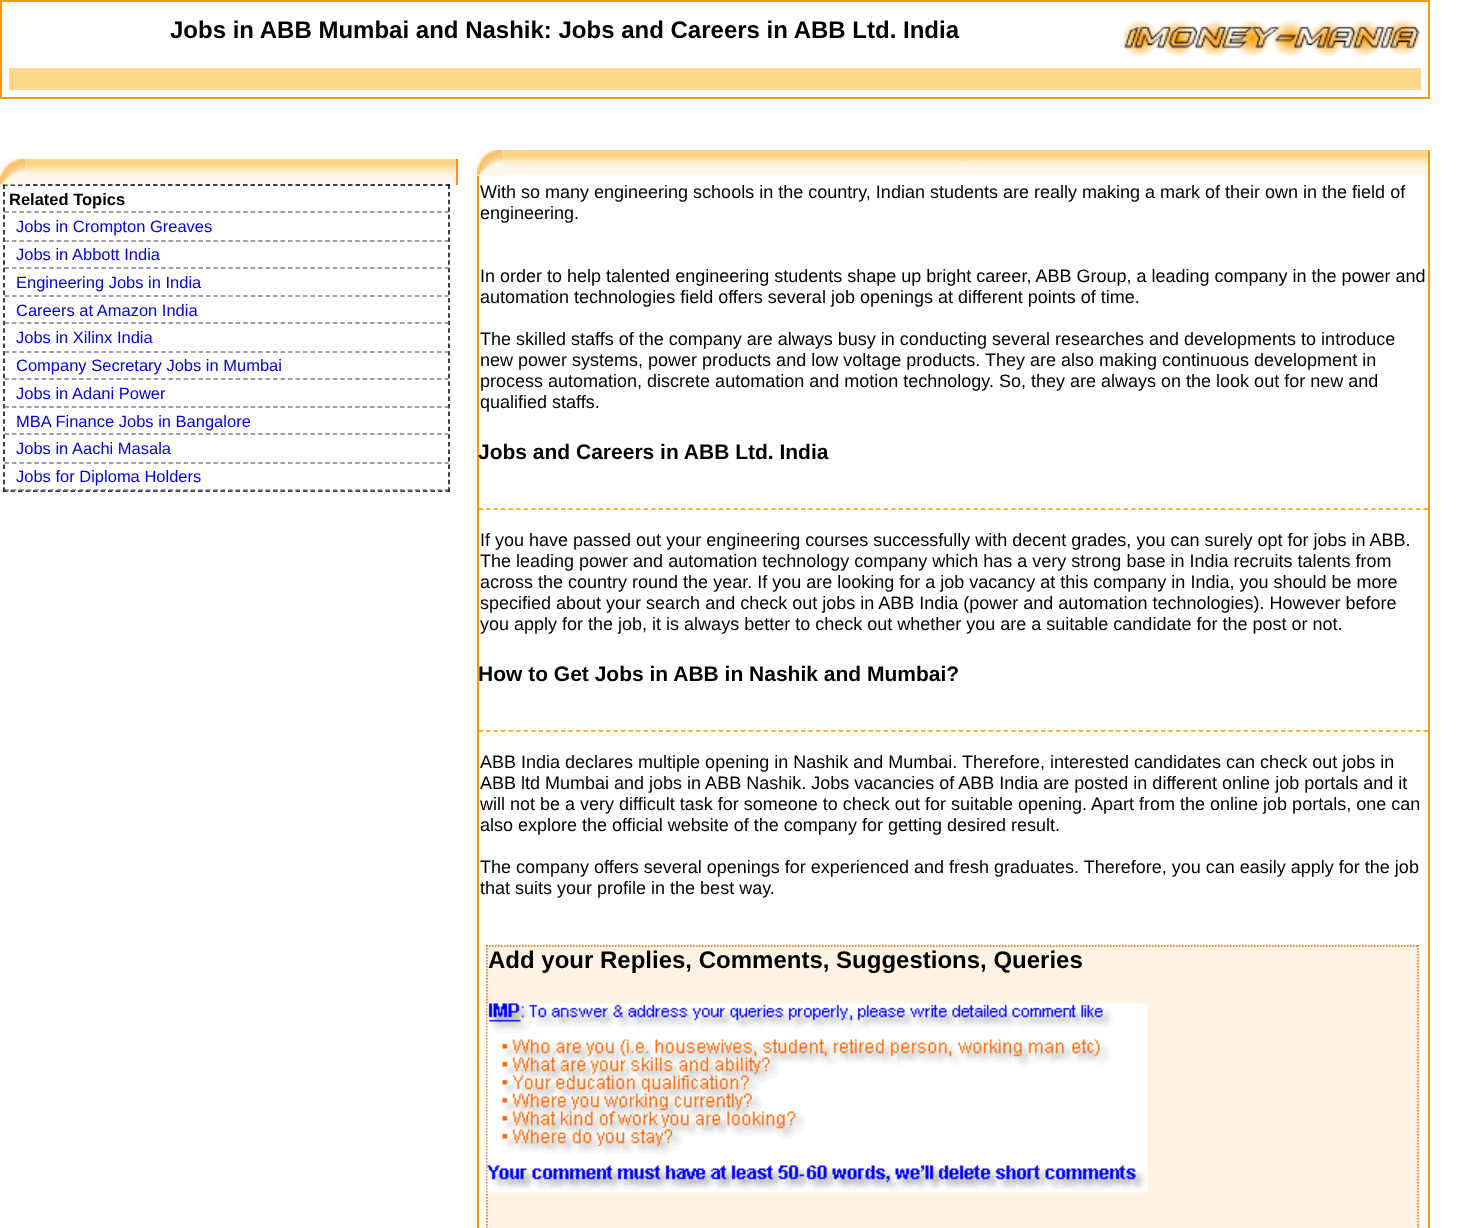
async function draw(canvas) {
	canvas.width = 1457;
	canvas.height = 1228;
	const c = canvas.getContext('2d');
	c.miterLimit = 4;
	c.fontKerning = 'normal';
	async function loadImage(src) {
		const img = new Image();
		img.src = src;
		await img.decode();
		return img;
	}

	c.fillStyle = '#fff';
	c.fillRect(0, 0, 1457, 1228);
	c.strokeStyle = '#f90';
	c.lineWidth = 2;
	c.strokeRect(1, 1, 1428, 97);
	c.font = 'bold 24px Liberation Sans';
	c.fillStyle = '#000';
	c.fillText('Jobs in ABB Mumbai and Nashik: Jobs and Careers in ABB Ltd. India', 170, 38);
	c.drawImage(await loadImage('img1.png'), 1122, 18, 299, 39);
	c.fillStyle = '#ffda8e';
	c.fillRect(9, 68, 1412, 22);
	c.fillStyle = '#f90';
	c.fillRect(456, 159, 2, 26);
	c.drawImage(await loadImage('img3.png'), 25, 159, 431, 26);
	c.beginPath();
	c.moveTo(3, 185);
	c.lineTo(450, 185);
	c.strokeStyle = '#000';
	c.lineWidth = 1.5;
	c.setLineDash([4.5, 3]);
	c.stroke();
	c.beginPath();
	c.moveTo(449, 184.5);
	c.lineTo(449, 492);
	c.setLineDash([4.5, 3.07]);
	c.stroke();
	c.beginPath();
	c.moveTo(3, 491);
	c.lineTo(450, 491);
	c.setLineDash([4.5, 3]);
	c.stroke();
	c.beginPath();
	c.moveTo(4, 184.5);
	c.lineTo(4, 492);
	c.setLineDash([4.5, 3.07]);
	c.stroke();
	c.drawImage(await loadImage('img2.png'), 0, 159, 26, 26);
	c.beginPath();
	c.moveTo(4.5, 212);
	c.lineTo(448.5, 212);
	c.strokeStyle = '#808080';
	c.setLineDash([4.5, 2.96]);
	c.stroke();
	c.font = 'bold 16.5px Liberation Sans';
	c.fillStyle = '#000';
	c.fillText('Related Topics', 9, 205);
	c.beginPath();
	c.moveTo(4.5, 241);
	c.lineTo(448.5, 241);
	c.stroke();
	c.font = '16.5px Liberation Sans';
	c.fillStyle = '#00c';
	c.fillText('Jobs in Crompton Greaves', 16, 232);
	c.beginPath();
	c.moveTo(4.5, 268);
	c.lineTo(448.5, 268);
	c.stroke();
	c.fillText('Jobs in Abbott India', 16, 260);
	c.beginPath();
	c.moveTo(4.5, 296);
	c.lineTo(448.5, 296);
	c.stroke();
	c.fillText('Engineering Jobs in India', 16, 288);
	c.beginPath();
	c.moveTo(4.5, 323);
	c.lineTo(448.5, 323);
	c.stroke();
	c.fillText('Careers at Amazon India', 16, 316);
	c.beginPath();
	c.moveTo(4.5, 352);
	c.lineTo(448.5, 352);
	c.stroke();
	c.fillText('Jobs in Xilinx India', 16, 343);
	c.beginPath();
	c.moveTo(4.5, 379);
	c.lineTo(448.5, 379);
	c.stroke();
	c.fillText('Company Secretary Jobs in Mumbai', 16, 371);
	c.beginPath();
	c.moveTo(4.5, 407);
	c.lineTo(448.5, 407);
	c.stroke();
	c.fillText('Jobs in Adani Power', 16, 399);
	c.beginPath();
	c.moveTo(4.5, 434);
	c.lineTo(448.5, 434);
	c.stroke();
	c.fillText('MBA Finance Jobs in Bangalore', 16, 427);
	c.beginPath();
	c.moveTo(4.5, 463);
	c.lineTo(448.5, 463);
	c.stroke();
	c.fillText('Jobs in Aachi Masala', 16, 454);
	c.beginPath();
	c.moveTo(4.5, 490);
	c.lineTo(448.5, 490);
	c.stroke();
	c.fillText('Jobs for Diploma Holders', 16, 482);
	c.fillStyle = '#f90';
	c.fillRect(1428, 150, 2, 1078);
	c.drawImage(await loadImage('img5.png'), 502, 150, 926, 26);
	c.drawImage(await loadImage('img4.png'), 477, 150, 26, 26);
	c.drawImage(await loadImage('img6.png'), 964, 162, 2, 2);
	c.fillRect(477, 176, 2, 1052);
	c.font = '18px Liberation Sans';
	c.fillStyle = '#000';
	for (const [text, x, y] of [
		['With so many engineering schools in the country, Indian students are really making a mark of their own in the field of', 480, 198],
		['engineering.', 480, 219],
		['In order to help talented engineering students shape up bright career, ABB Group, a leading company in the power and', 480, 282],
		['automation technologies field offers several job openings at different points of time.', 480, 303],
		['The skilled staffs of the company are always busy in conducting several researches and developments to introduce', 480, 345],
		['new power systems, power products and low voltage products. They are also making continuous development in', 480, 366],
		['process automation, discrete automation and motion technology. So, they are always on the look out for new and', 480, 387],
		['qualified staffs.', 480, 408],
	]) {
		c.fillText(text, x, y);
	}
	c.beginPath();
	c.moveTo(478.5, 509);
	c.lineTo(1428, 509);
	c.strokeStyle = '#f90';
	c.setLineDash([4.5, 3]);
	c.stroke();
	c.font = 'bold 21px Liberation Sans';
	c.fillText('Jobs and Careers in ABB Ltd. India', 478, 459);
	c.font = '18px Liberation Sans';
	for (const [text, x, y] of [
		['If you have passed out your engineering courses successfully with decent grades, you can surely opt for jobs in ABB.', 480, 546],
		['The leading power and automation technology company which has a very strong base in India recruits talents from', 480, 567],
		['across the country round the year. If you are looking for a job vacancy at this company in India, you should be more', 480, 588],
		['specified about your search and check out jobs in ABB India (power and automation technologies). However before', 480, 609],
		['you apply for the job, it is always better to check out whether you are a suitable candidate for the post or not.', 480, 630],
	]) {
		c.fillText(text, x, y);
	}
	c.beginPath();
	c.moveTo(478.5, 731);
	c.lineTo(1428, 731);
	c.stroke();
	c.font = 'bold 21px Liberation Sans';
	c.fillText('How to Get Jobs in ABB in Nashik and Mumbai?', 478, 681);
	c.font = '18px Liberation Sans';
	for (const [text, x, y] of [
		['ABB India declares multiple opening in Nashik and Mumbai. Therefore, interested candidates can check out jobs in', 480, 768],
		['ABB ltd Mumbai and jobs in ABB Nashik. Jobs vacancies of ABB India are posted in different online job portals and it', 480, 789],
		['will not be a very difficult task for someone to check out for suitable opening. Apart from the online job portals, one can', 480, 810],
		['also explore the official website of the company for getting desired result.', 480, 831],
		['The company offers several openings for experienced and fresh graduates. Therefore, you can easily apply for the job', 480, 873],
		['that suits your profile in the best way.', 480, 894],
	]) {
		c.fillText(text, x, y);
	}
	c.fillStyle = '#fef3e2';
	c.fillRect(486, 945, 933, 283);
	c.beginPath();
	c.moveTo(486, 946);
	c.lineTo(1419, 946);
	c.strokeStyle = '#f60';
	c.setLineDash([1.5, 1.5]);
	c.stroke();
	c.beginPath();
	c.moveTo(1418, 945);
	c.lineTo(1418, 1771.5);
	c.stroke();
	c.beginPath();
	c.moveTo(487, 945);
	c.lineTo(487, 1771.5);
	c.stroke();
	c.font = 'bold 24px Liberation Sans';
	c.fillStyle = '#000';
	c.fillText('Add your Replies, Comments, Suggestions, Queries', 488, 968);
	c.drawImage(await loadImage('img7.png'), 487, 1003, 661, 190);
}

draw(document.querySelector('canvas'));
